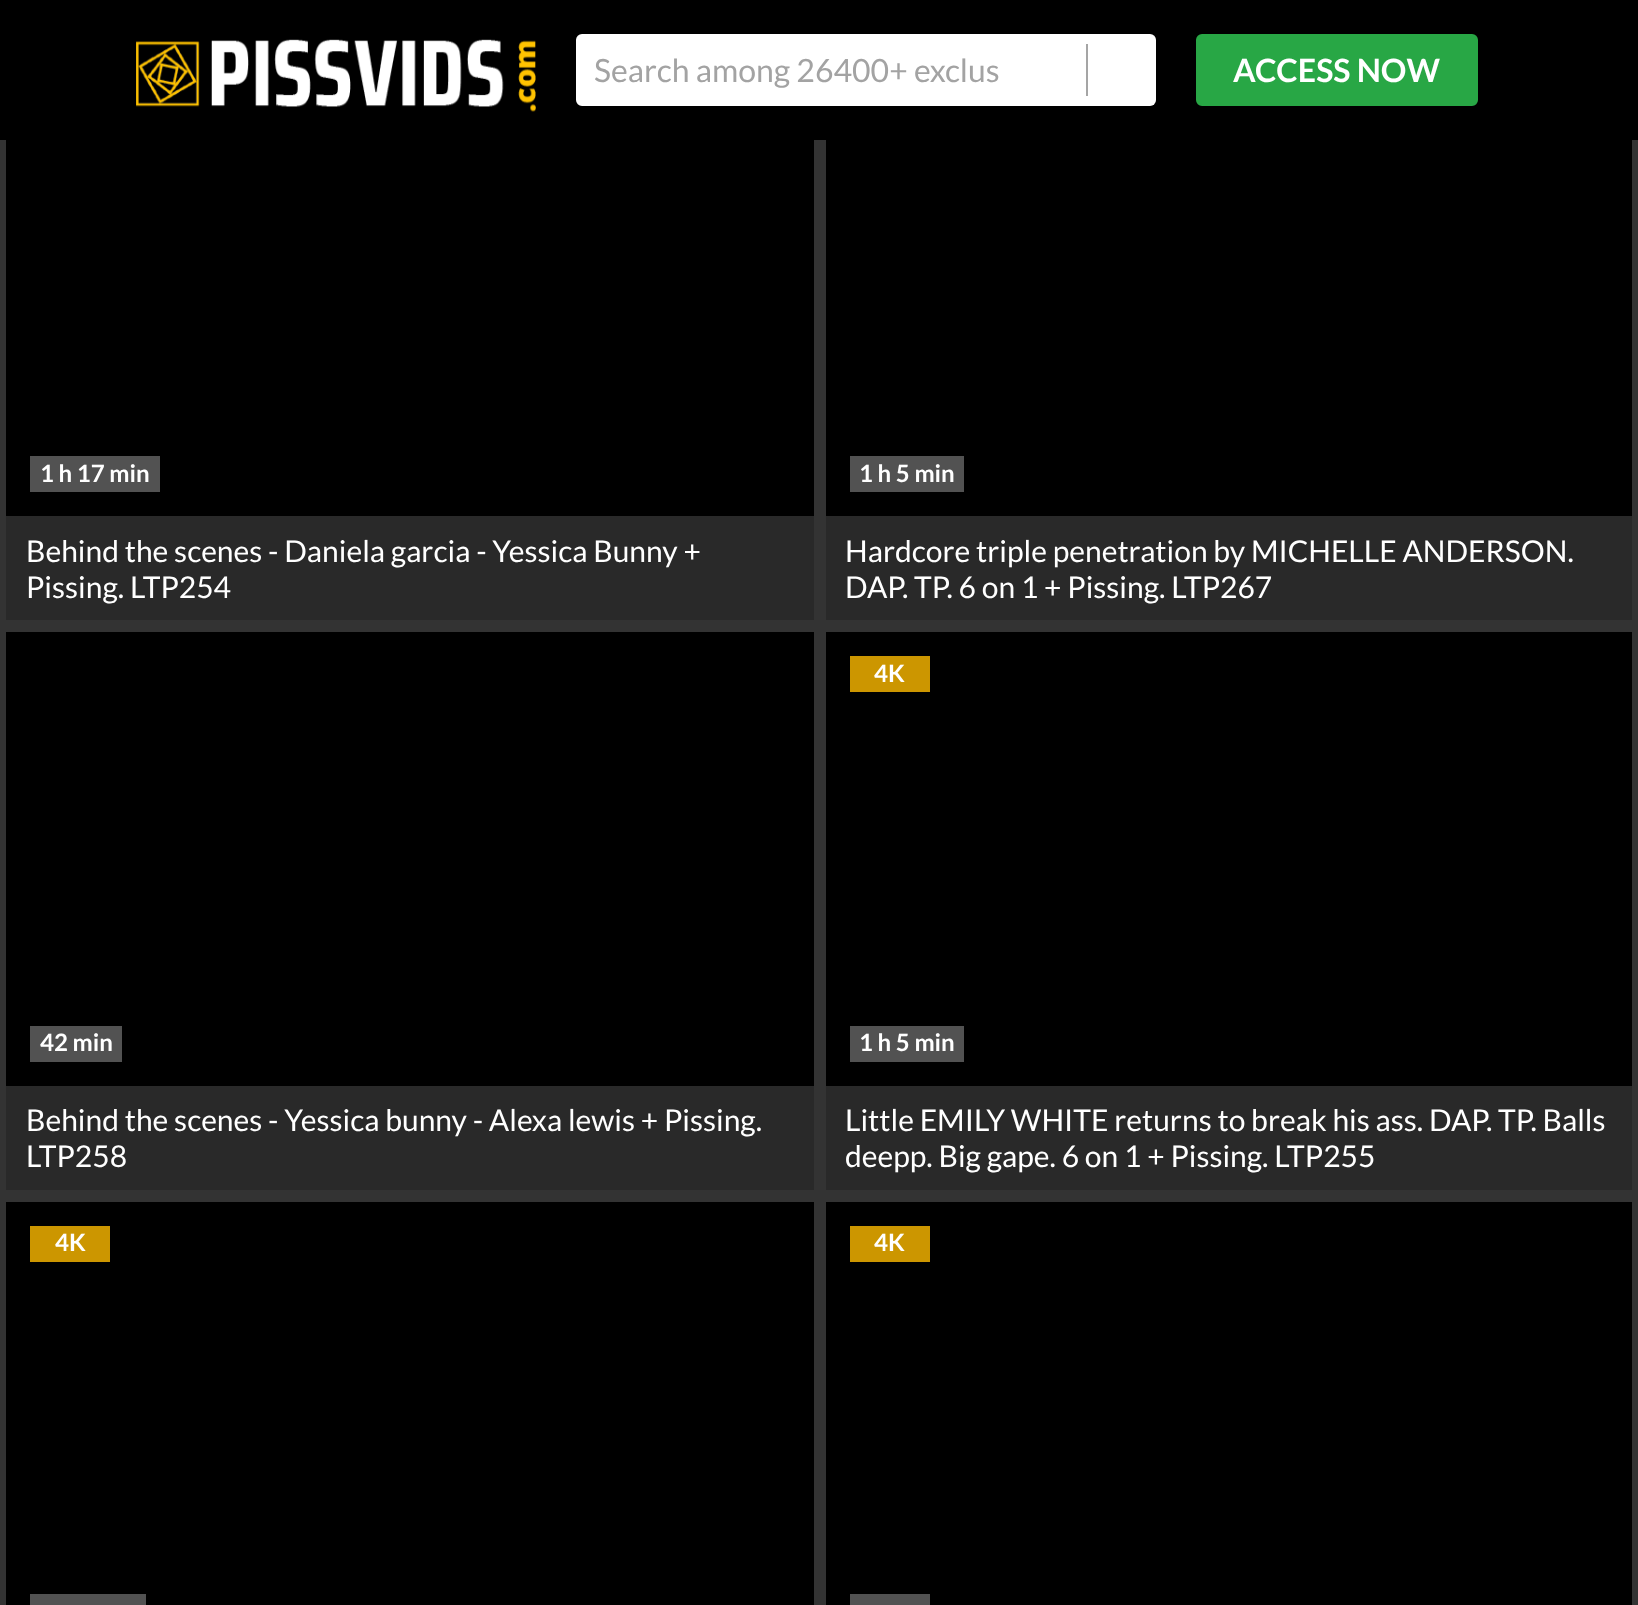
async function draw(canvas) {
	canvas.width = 1638;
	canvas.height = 1605;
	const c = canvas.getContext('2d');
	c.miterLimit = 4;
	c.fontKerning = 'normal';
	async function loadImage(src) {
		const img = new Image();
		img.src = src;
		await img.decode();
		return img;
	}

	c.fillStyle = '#333';
	c.fillRect(0, 0, 1638, 1605);
	c.fillStyle = '#000';
	c.fillRect(0, 0, 1638, 140);
	c.drawImage(await loadImage('img1.png'), 136, 39, 400, 73);
	c.fillStyle = '#fff';
	c.beginPath();
	c.roundRect(577, 35, 440, 70, [5, 0, 0, 5]);
	c.fill();
	c.strokeStyle = '#fff';
	c.lineWidth = 2;
	c.stroke();
	c.font = '32px Lato';
	c.fillStyle = '#a3a3a3';
	c.fillText('Search among 26400+ exclus', 594, 82);
	c.fillStyle = '#fff';
	c.fillRect(1018, 34, 66, 72);
	c.beginPath();
	c.roundRect(1084, 34, 72, 72, [0, 6, 6, 0]);
	c.fill();
	c.fillStyle = '#a5a5a5';
	c.fillRect(1086, 44, 2, 52);
	c.fillStyle = '#28a745';
	c.beginPath();
	c.roundRect(1197, 35, 280, 70, 5);
	c.fill();
	c.strokeStyle = '#28a745';
	c.stroke();
	c.font = 'bold 32px Lato';
	c.fillStyle = '#fff';
	c.fillText('ACCESS NOW', 1233, 82);
	for (const [x, y, w, h, color] of [
		[6, 516, 808, 104, '#292929'],
		[6, 140, 808, 376, '#000'],
		[30, 456, 130, 36, '#525252'],
	]) {
		c.fillStyle = color;
		c.fillRect(x, y, w, h);
	}
	c.font = 'bold 24px Lato';
	c.fillStyle = '#fff';
	c.fillText('1 h 17 min', 40, 482);
	c.font = '30px Lato';
	c.fillText('Behind the scenes - Daniela garcia - Yessica Bunny +', 26, 562);
	c.fillText('Pissing. LTP254', 26, 598);
	for (const [x, y, w, h, color] of [
		[826, 516, 806, 104, '#292929'],
		[826, 140, 806, 376, '#000'],
		[850, 456, 114, 36, '#525252'],
	]) {
		c.fillStyle = color;
		c.fillRect(x, y, w, h);
	}
	c.font = 'bold 24px Lato';
	c.fillStyle = '#fff';
	c.fillText('1 h 5 min', 859, 482);
	c.font = '30px Lato';
	c.fillText('Hardcore triple penetration by MICHELLE ANDERSON.', 845, 562);
	c.fillText('DAP. TP. 6 on 1 + Pissing. LTP267', 845, 598);
	for (const [x, y, w, h, color] of [
		[6, 1086, 808, 104, '#292929'],
		[6, 632, 808, 454, '#000'],
		[30, 1026, 92, 36, '#525252'],
	]) {
		c.fillStyle = color;
		c.fillRect(x, y, w, h);
	}
	c.font = 'bold 24px Lato';
	c.fillStyle = '#fff';
	c.fillText('42 min', 40, 1051);
	c.font = '30px Lato';
	c.fillText('Behind the scenes - Yessica bunny - Alexa lewis + Pissing.', 26, 1131);
	c.fillText('LTP258', 26, 1167);
	for (const [x, y, w, h, color] of [
		[826, 1086, 806, 104, '#292929'],
		[826, 632, 806, 454, '#000'],
		[850, 656, 80, 36, '#cc9600'],
	]) {
		c.fillStyle = color;
		c.fillRect(x, y, w, h);
	}
	c.font = 'bold 24px Lato';
	c.fillStyle = '#fff';
	c.fillText('4K', 874, 682);
	c.fillStyle = '#525252';
	c.fillRect(850, 1026, 114, 36);
	c.fillStyle = '#fff';
	c.fillText('1 h 5 min', 859, 1051);
	c.font = '30px Lato';
	c.fillText('Little EMILY WHITE returns to break his ass. DAP. TP. Balls', 845, 1131);
	c.fillText('deepp. Big gape. 6 on 1 + Pissing. LTP255', 845, 1167);
	c.fillStyle = '#000';
	c.fillRect(6, 1202, 808, 403);
	c.fillStyle = '#cc9600';
	c.fillRect(30, 1226, 80, 36);
	c.font = 'bold 24px Lato';
	c.fillStyle = '#fff';
	c.fillText('4K', 55, 1251);
	for (const [x, y, w, h, color] of [
		[30, 1594, 116, 11, '#525252'],
		[826, 1202, 806, 403, '#000'],
		[850, 1226, 80, 36, '#cc9600'],
	]) {
		c.fillStyle = color;
		c.fillRect(x, y, w, h);
	}
	c.fillStyle = '#fff';
	c.fillText('4K', 874, 1251);
	c.fillStyle = '#525252';
	c.fillRect(850, 1594, 80, 11);
}

draw(document.querySelector('canvas'));
